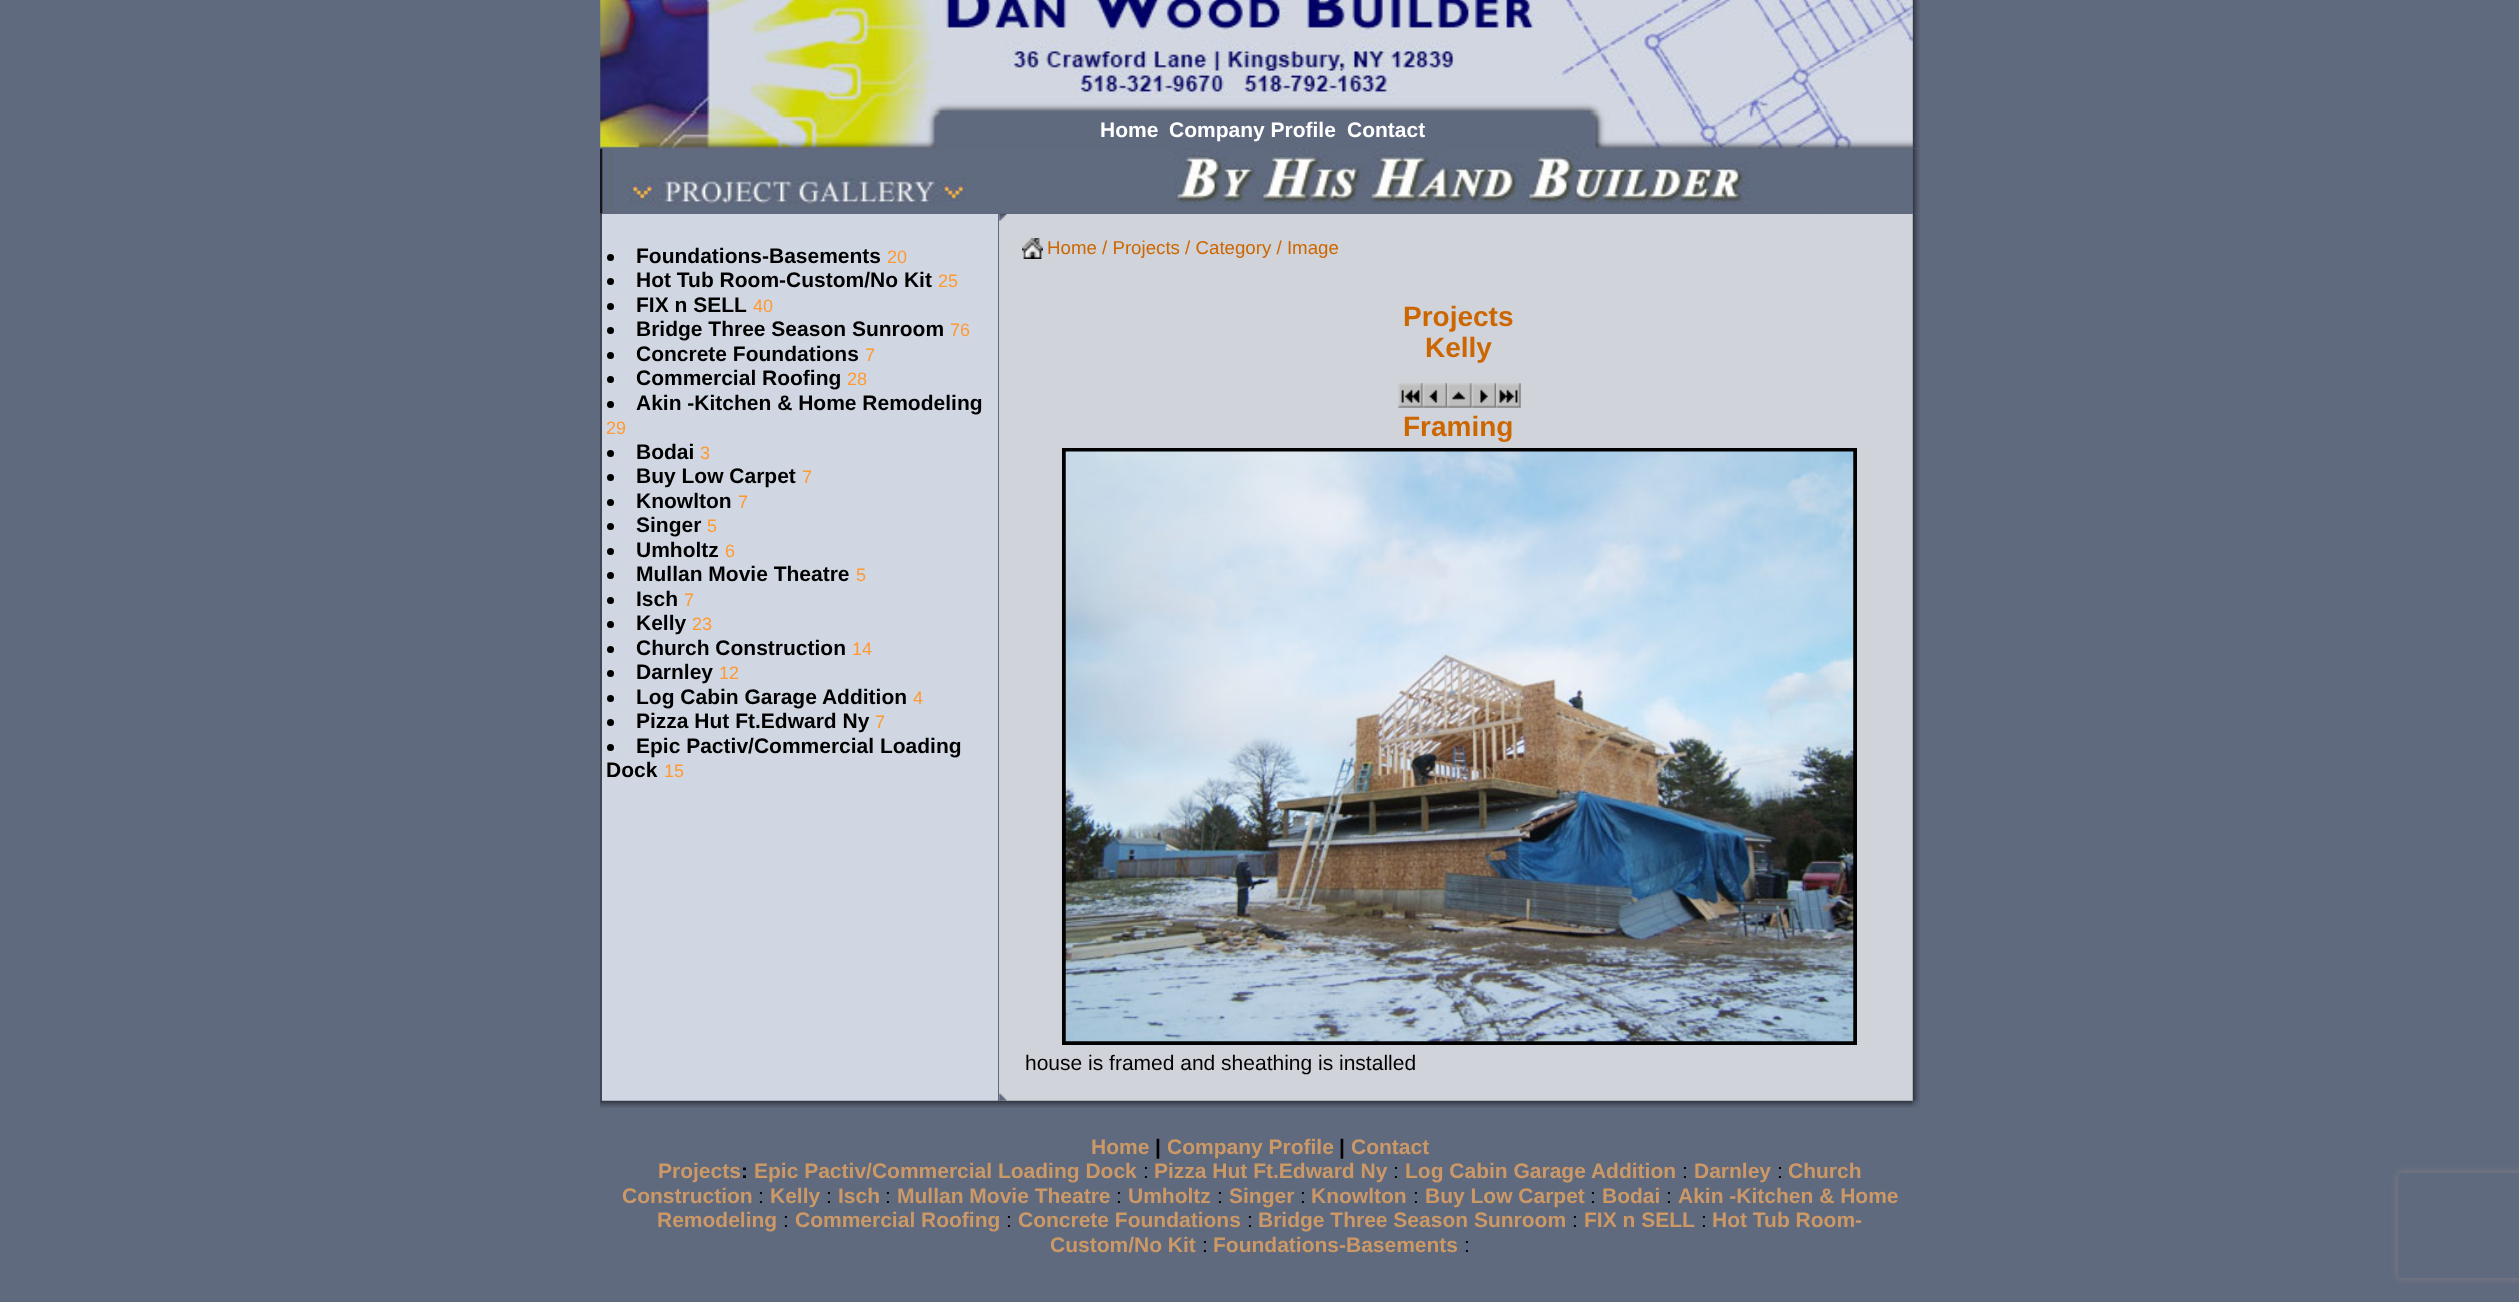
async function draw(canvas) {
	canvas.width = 2519;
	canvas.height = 1302;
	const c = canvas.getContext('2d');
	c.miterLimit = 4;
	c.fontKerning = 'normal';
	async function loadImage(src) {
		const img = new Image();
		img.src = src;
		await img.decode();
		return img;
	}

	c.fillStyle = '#606a7f';
	c.fillRect(0, 0, 2519, 1302);
	c.drawImage(await loadImage('img2.png'), 1912, 0, 8, 112);
	c.drawImage(await loadImage('img1.png'), 600, 0, 1313, 112);
	c.drawImage(await loadImage('img6.png'), 600, 148, 1221, 66);
	c.drawImage(await loadImage('img3.png'), 600, 112, 340, 37);
	c.font = 'bold 21px Liberation Sans';
	c.fillStyle = '#fff';
	for (const [text, x, y] of [
		['Home', 1100, 137],
		['Company Profile', 1169, 137],
		['Contact', 1347, 137],
	]) {
		c.fillText(text, x, y);
	}
	c.drawImage(await loadImage('img5.png'), 1912, 112, 8, 37);
	c.drawImage(await loadImage('img4.png'), 1587, 112, 326, 37);
	c.drawImage(await loadImage('img8.png'), 1912, 149, 8, 65);
	c.fillStyle = '#d0d3d9';
	c.fillRect(999, 214, 914, 887);
	c.drawImage(await loadImage('img18.png'), 1912, 213, 8, 888);
	c.drawImage(await loadImage('img7.png'), 600, 148, 1313, 66);
	c.fillStyle = '#3e4553';
	c.fillRect(600, 214, 2, 887);
	c.fillStyle = '#d1d7e2';
	c.fillRect(602, 214, 396, 887);
	c.fillStyle = '#000';
	c.beginPath();
	c.arc(610.5, 257.5, 3.5, 0, 2 * Math.PI);
	c.fill();
	c.fillText('Foundations-Basements', 636, 263);
	c.font = '18px Liberation Sans';
	c.fillStyle = '#ff9930';
	c.fillText('20', 887, 263);
	c.fillStyle = '#000';
	c.beginPath();
	c.arc(610.5, 281.5, 3.5, 0, 2 * Math.PI);
	c.fill();
	c.font = 'bold 21px Liberation Sans';
	c.fillText('Hot Tub Room-Custom/No Kit', 636, 287);
	c.font = '18px Liberation Sans';
	c.fillStyle = '#ff9930';
	c.fillText('25', 938, 287);
	c.fillStyle = '#000';
	c.beginPath();
	c.arc(610.5, 306.5, 3.5, 0, 2 * Math.PI);
	c.fill();
	c.font = 'bold 21px Liberation Sans';
	c.fillText('FIX n SELL', 636, 312);
	c.font = '18px Liberation Sans';
	c.fillStyle = '#ff9930';
	c.fillText('40', 753, 312);
	c.fillStyle = '#000';
	c.beginPath();
	c.arc(610.5, 330.5, 3.5, 0, 2 * Math.PI);
	c.fill();
	c.font = 'bold 21px Liberation Sans';
	c.fillText('Bridge Three Season Sunroom', 636, 336);
	c.font = '18px Liberation Sans';
	c.fillStyle = '#ff9930';
	c.fillText('76', 950, 336);
	c.fillStyle = '#000';
	c.beginPath();
	c.arc(610.5, 355.5, 3.5, 0, 2 * Math.PI);
	c.fill();
	c.font = 'bold 21px Liberation Sans';
	c.fillText('Concrete Foundations', 636, 361);
	c.font = '18px Liberation Sans';
	c.fillStyle = '#ff9930';
	c.fillText('7', 865, 361);
	c.fillStyle = '#000';
	c.beginPath();
	c.arc(610.5, 379.5, 3.5, 0, 2 * Math.PI);
	c.fill();
	c.font = 'bold 21px Liberation Sans';
	c.fillText('Commercial Roofing', 636, 385);
	c.font = '18px Liberation Sans';
	c.fillStyle = '#ff9930';
	c.fillText('28', 847, 385);
	c.fillStyle = '#000';
	c.beginPath();
	c.arc(610.5, 404.5, 3.5, 0, 2 * Math.PI);
	c.fill();
	c.font = 'bold 21px Liberation Sans';
	c.fillText('Akin -Kitchen & Home Remodeling', 636, 410);
	c.font = '18px Liberation Sans';
	c.fillStyle = '#ff9930';
	c.fillText('29', 606, 434);
	c.fillStyle = '#000';
	c.beginPath();
	c.arc(610.5, 453.5, 3.5, 0, 2 * Math.PI);
	c.fill();
	c.font = 'bold 21px Liberation Sans';
	c.fillText('Bodai', 636, 459);
	c.font = '18px Liberation Sans';
	c.fillStyle = '#ff9930';
	c.fillText('3', 700, 459);
	c.fillStyle = '#000';
	c.beginPath();
	c.arc(610.5, 477.5, 3.5, 0, 2 * Math.PI);
	c.fill();
	c.font = 'bold 21px Liberation Sans';
	c.fillText('Buy Low Carpet', 636, 483);
	c.font = '18px Liberation Sans';
	c.fillStyle = '#ff9930';
	c.fillText('7', 802, 483);
	c.fillStyle = '#000';
	c.beginPath();
	c.arc(610.5, 502.5, 3.5, 0, 2 * Math.PI);
	c.fill();
	c.font = 'bold 21px Liberation Sans';
	c.fillText('Knowlton', 636, 508);
	c.font = '18px Liberation Sans';
	c.fillStyle = '#ff9930';
	c.fillText('7', 738, 508);
	c.fillStyle = '#000';
	c.beginPath();
	c.arc(610.5, 526.5, 3.5, 0, 2 * Math.PI);
	c.fill();
	c.font = 'bold 21px Liberation Sans';
	c.fillText('Singer', 636, 532);
	c.font = '18px Liberation Sans';
	c.fillStyle = '#ff9930';
	c.fillText('5', 707, 532);
	c.fillStyle = '#000';
	c.beginPath();
	c.arc(610.5, 551.5, 3.5, 0, 2 * Math.PI);
	c.fill();
	c.font = 'bold 21px Liberation Sans';
	c.fillText('Umholtz', 636, 557);
	c.font = '18px Liberation Sans';
	c.fillStyle = '#ff9930';
	c.fillText('6', 725, 557);
	c.fillStyle = '#000';
	c.beginPath();
	c.arc(610.5, 575.5, 3.5, 0, 2 * Math.PI);
	c.fill();
	c.font = 'bold 21px Liberation Sans';
	c.fillText('Mullan Movie Theatre', 636, 581);
	c.font = '18px Liberation Sans';
	c.fillStyle = '#ff9930';
	c.fillText('5', 856, 581);
	c.fillStyle = '#000';
	c.beginPath();
	c.arc(610.5, 600.5, 3.5, 0, 2 * Math.PI);
	c.fill();
	c.font = 'bold 21px Liberation Sans';
	c.fillText('Isch', 636, 606);
	c.font = '18px Liberation Sans';
	c.fillStyle = '#ff9930';
	c.fillText('7', 684, 606);
	c.fillStyle = '#000';
	c.beginPath();
	c.arc(610.5, 624.5, 3.5, 0, 2 * Math.PI);
	c.fill();
	c.font = 'bold 21px Liberation Sans';
	c.fillText('Kelly', 636, 630);
	c.font = '18px Liberation Sans';
	c.fillStyle = '#ff9930';
	c.fillText('23', 692, 630);
	c.fillStyle = '#000';
	c.beginPath();
	c.arc(610.5, 649.5, 3.5, 0, 2 * Math.PI);
	c.fill();
	c.font = 'bold 21px Liberation Sans';
	c.fillText('Church Construction', 636, 655);
	c.font = '18px Liberation Sans';
	c.fillStyle = '#ff9930';
	c.fillText('14', 852, 655);
	c.fillStyle = '#000';
	c.beginPath();
	c.arc(610.5, 673.5, 3.5, 0, 2 * Math.PI);
	c.fill();
	c.font = 'bold 21px Liberation Sans';
	c.fillText('Darnley', 636, 679);
	c.font = '18px Liberation Sans';
	c.fillStyle = '#ff9930';
	c.fillText('12', 719, 679);
	c.fillStyle = '#000';
	c.beginPath();
	c.arc(610.5, 698.5, 3.5, 0, 2 * Math.PI);
	c.fill();
	c.font = 'bold 21px Liberation Sans';
	c.fillText('Log Cabin Garage Addition', 636, 704);
	c.font = '18px Liberation Sans';
	c.fillStyle = '#ff9930';
	c.fillText('4', 913, 704);
	c.fillStyle = '#000';
	c.beginPath();
	c.arc(610.5, 722.5, 3.5, 0, 2 * Math.PI);
	c.fill();
	c.font = 'bold 21px Liberation Sans';
	c.fillText('Pizza Hut Ft.Edward Ny', 636, 728);
	c.font = '18px Liberation Sans';
	c.fillStyle = '#ff9930';
	c.fillText('7', 875, 728);
	c.fillStyle = '#000';
	c.beginPath();
	c.arc(610.5, 747.5, 3.5, 0, 2 * Math.PI);
	c.fill();
	c.font = 'bold 21px Liberation Sans';
	c.fillText('Epic Pactiv/Commercial Loading', 636, 753);
	c.fillText('Dock', 606, 777);
	c.font = '18px Liberation Sans';
	c.fillStyle = '#ff9930';
	c.fillText('15', 664, 777);
	c.drawImage(await loadImage('img9.png'), 999, 213, 8, 8);
	c.drawImage(await loadImage('img10.png'), 1022, 238, 21, 21);
	c.font = '18.7px Liberation Sans';
	c.fillStyle = '#c60';
	c.fillText('Home / Projects / Category / Image', 1047, 254);
	c.font = 'bold 28px Liberation Sans';
	c.fillText('Projects', 1403, 326);
	c.fillText('Kelly', 1425, 357);
	c.drawImage(await loadImage('img11.png'), 1398, 383, 25, 25);
	c.drawImage(await loadImage('img12.png'), 1422, 383, 26, 25);
	c.drawImage(await loadImage('img13.png'), 1447, 383, 25, 25);
	c.drawImage(await loadImage('img14.png'), 1471, 383, 26, 25);
	c.drawImage(await loadImage('img15.png'), 1496, 383, 25, 25);
	c.fillText('Framing', 1403, 436);
	c.strokeStyle = '#000';
	c.lineWidth = 4;
	c.strokeRect(1064, 450, 791, 593);
	c.drawImage(await loadImage('img16.png'), 1065, 451, 789, 591);
	c.font = '21px Liberation Sans';
	c.fillStyle = '#000';
	c.fillText('house is framed and sheathing is installed', 1025, 1070);
	c.drawImage(await loadImage('img19.png'), 600, 1100, 1313, 8);
	c.drawImage(await loadImage('img17.png'), 999, 1093, 8, 8);
	c.drawImage(await loadImage('img20.png'), 1912, 1100, 8, 8);
	c.font = 'bold 21px Liberation Sans';
	c.fillStyle = '#c96';
	c.fillText('Home', 1091, 1154);
	c.fillStyle = '#000';
	c.fillText('|', 1155, 1154);
	c.fillStyle = '#c96';
	c.fillText('Company Profile', 1167, 1154);
	c.fillStyle = '#000';
	c.fillText('|', 1339, 1154);
	c.fillStyle = '#c96';
	c.fillText('Contact', 1351, 1154);
	c.fillText('Projects', 658, 1178);
	c.fillStyle = '#000';
	c.fillText(':', 741, 1178);
	c.fillStyle = '#c96';
	c.fillText('Epic Pactiv/Commercial Loading Dock', 754, 1178);
	c.font = '21px Liberation Sans';
	c.fillStyle = '#000';
	c.fillText(':', 1143, 1178);
	c.font = 'bold 21px Liberation Sans';
	c.fillStyle = '#c96';
	c.fillText('Pizza Hut Ft.Edward Ny', 1154, 1178);
	c.font = '21px Liberation Sans';
	c.fillStyle = '#000';
	c.fillText(':', 1393, 1178);
	c.font = 'bold 21px Liberation Sans';
	c.fillStyle = '#c96';
	c.fillText('Log Cabin Garage Addition', 1405, 1178);
	c.font = '21px Liberation Sans';
	c.fillStyle = '#000';
	c.fillText(':', 1682, 1178);
	c.font = 'bold 21px Liberation Sans';
	c.fillStyle = '#c96';
	c.fillText('Darnley', 1694, 1178);
	c.font = '21px Liberation Sans';
	c.fillStyle = '#000';
	c.fillText(':', 1777, 1178);
	c.font = 'bold 21px Liberation Sans';
	c.fillStyle = '#c96';
	c.fillText('Church', 1788, 1178);
	c.fillText('Construction', 622, 1203);
	c.font = '21px Liberation Sans';
	c.fillStyle = '#000';
	c.fillText(':', 758, 1203);
	c.font = 'bold 21px Liberation Sans';
	c.fillStyle = '#c96';
	c.fillText('Kelly', 770, 1203);
	c.font = '21px Liberation Sans';
	c.fillStyle = '#000';
	c.fillText(':', 826, 1203);
	c.font = 'bold 21px Liberation Sans';
	c.fillStyle = '#c96';
	c.fillText('Isch', 838, 1203);
	c.font = '21px Liberation Sans';
	c.fillStyle = '#000';
	c.fillText(':', 885, 1203);
	c.font = 'bold 21px Liberation Sans';
	c.fillStyle = '#c96';
	c.fillText('Mullan Movie Theatre', 897, 1203);
	c.font = '21px Liberation Sans';
	c.fillStyle = '#000';
	c.fillText(':', 1116, 1203);
	c.font = 'bold 21px Liberation Sans';
	c.fillStyle = '#c96';
	c.fillText('Umholtz', 1128, 1203);
	c.font = '21px Liberation Sans';
	c.fillStyle = '#000';
	c.fillText(':', 1217, 1203);
	c.font = 'bold 21px Liberation Sans';
	c.fillStyle = '#c96';
	c.fillText('Singer', 1229, 1203);
	c.font = '21px Liberation Sans';
	c.fillStyle = '#000';
	c.fillText(':', 1300, 1203);
	c.font = 'bold 21px Liberation Sans';
	c.fillStyle = '#c96';
	c.fillText('Knowlton', 1311, 1203);
	c.font = '21px Liberation Sans';
	c.fillStyle = '#000';
	c.fillText(':', 1413, 1203);
	c.font = 'bold 21px Liberation Sans';
	c.fillStyle = '#c96';
	c.fillText('Buy Low Carpet', 1425, 1203);
	c.font = '21px Liberation Sans';
	c.fillStyle = '#000';
	c.fillText(':', 1590, 1203);
	c.font = 'bold 21px Liberation Sans';
	c.fillStyle = '#c96';
	c.fillText('Bodai', 1602, 1203);
	c.font = '21px Liberation Sans';
	c.fillStyle = '#000';
	c.fillText(':', 1666, 1203);
	c.font = 'bold 21px Liberation Sans';
	c.fillStyle = '#c96';
	c.fillText('Akin -Kitchen & Home', 1678, 1203);
	c.fillText('Remodeling', 657, 1227);
	c.font = '21px Liberation Sans';
	c.fillStyle = '#000';
	c.fillText(':', 783, 1227);
	c.font = 'bold 21px Liberation Sans';
	c.fillStyle = '#c96';
	c.fillText('Commercial Roofing', 795, 1227);
	c.font = '21px Liberation Sans';
	c.fillStyle = '#000';
	c.fillText(':', 1006, 1227);
	c.font = 'bold 21px Liberation Sans';
	c.fillStyle = '#c96';
	c.fillText('Concrete Foundations', 1018, 1227);
	c.font = '21px Liberation Sans';
	c.fillStyle = '#000';
	c.fillText(':', 1247, 1227);
	c.font = 'bold 21px Liberation Sans';
	c.fillStyle = '#c96';
	c.fillText('Bridge Three Season Sunroom', 1258, 1227);
	c.font = '21px Liberation Sans';
	c.fillStyle = '#000';
	c.fillText(':', 1572, 1227);
	c.font = 'bold 21px Liberation Sans';
	c.fillStyle = '#c96';
	c.fillText('FIX n SELL', 1584, 1227);
	c.font = '21px Liberation Sans';
	c.fillStyle = '#000';
	c.fillText(':', 1701, 1227);
	c.font = 'bold 21px Liberation Sans';
	c.fillStyle = '#c96';
	c.fillText('Hot Tub Room-', 1712, 1227);
	c.fillText('Custom/No Kit', 1050, 1252);
	c.font = '21px Liberation Sans';
	c.fillStyle = '#000';
	c.fillText(':', 1202, 1252);
	c.font = 'bold 21px Liberation Sans';
	c.fillStyle = '#c96';
	c.fillText('Foundations-Basements', 1213, 1252);
	c.font = '21px Liberation Sans';
	c.fillStyle = '#000';
	c.fillText(':', 1464, 1252);
	c.save();
	c.beginPath();
	c.moveTo(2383, 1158);
	c.lineTo(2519, 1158);
	c.lineTo(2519, 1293);
	c.lineTo(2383, 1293);
	c.closePath();
	c.moveTo(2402, 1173);
	c.lineTo(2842, 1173);
	c.bezierCurveTo(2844, 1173, 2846, 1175, 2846, 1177);
	c.lineTo(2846, 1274);
	c.bezierCurveTo(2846, 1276, 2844, 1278, 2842, 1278);
	c.lineTo(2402, 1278);
	c.bezierCurveTo(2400, 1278, 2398, 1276, 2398, 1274);
	c.lineTo(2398, 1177);
	c.bezierCurveTo(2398, 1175, 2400, 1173, 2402, 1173);
	c.closePath();
	c.clip('evenodd');
	c.fillStyle = '#808080';
	c.filter = 'blur(4.5px)';
	c.beginPath();
	c.roundRect(2398, 1173, 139, 105, 4);
	c.fill();
	c.filter = 'none';
	c.restore();
}

draw(document.querySelector('canvas'));
